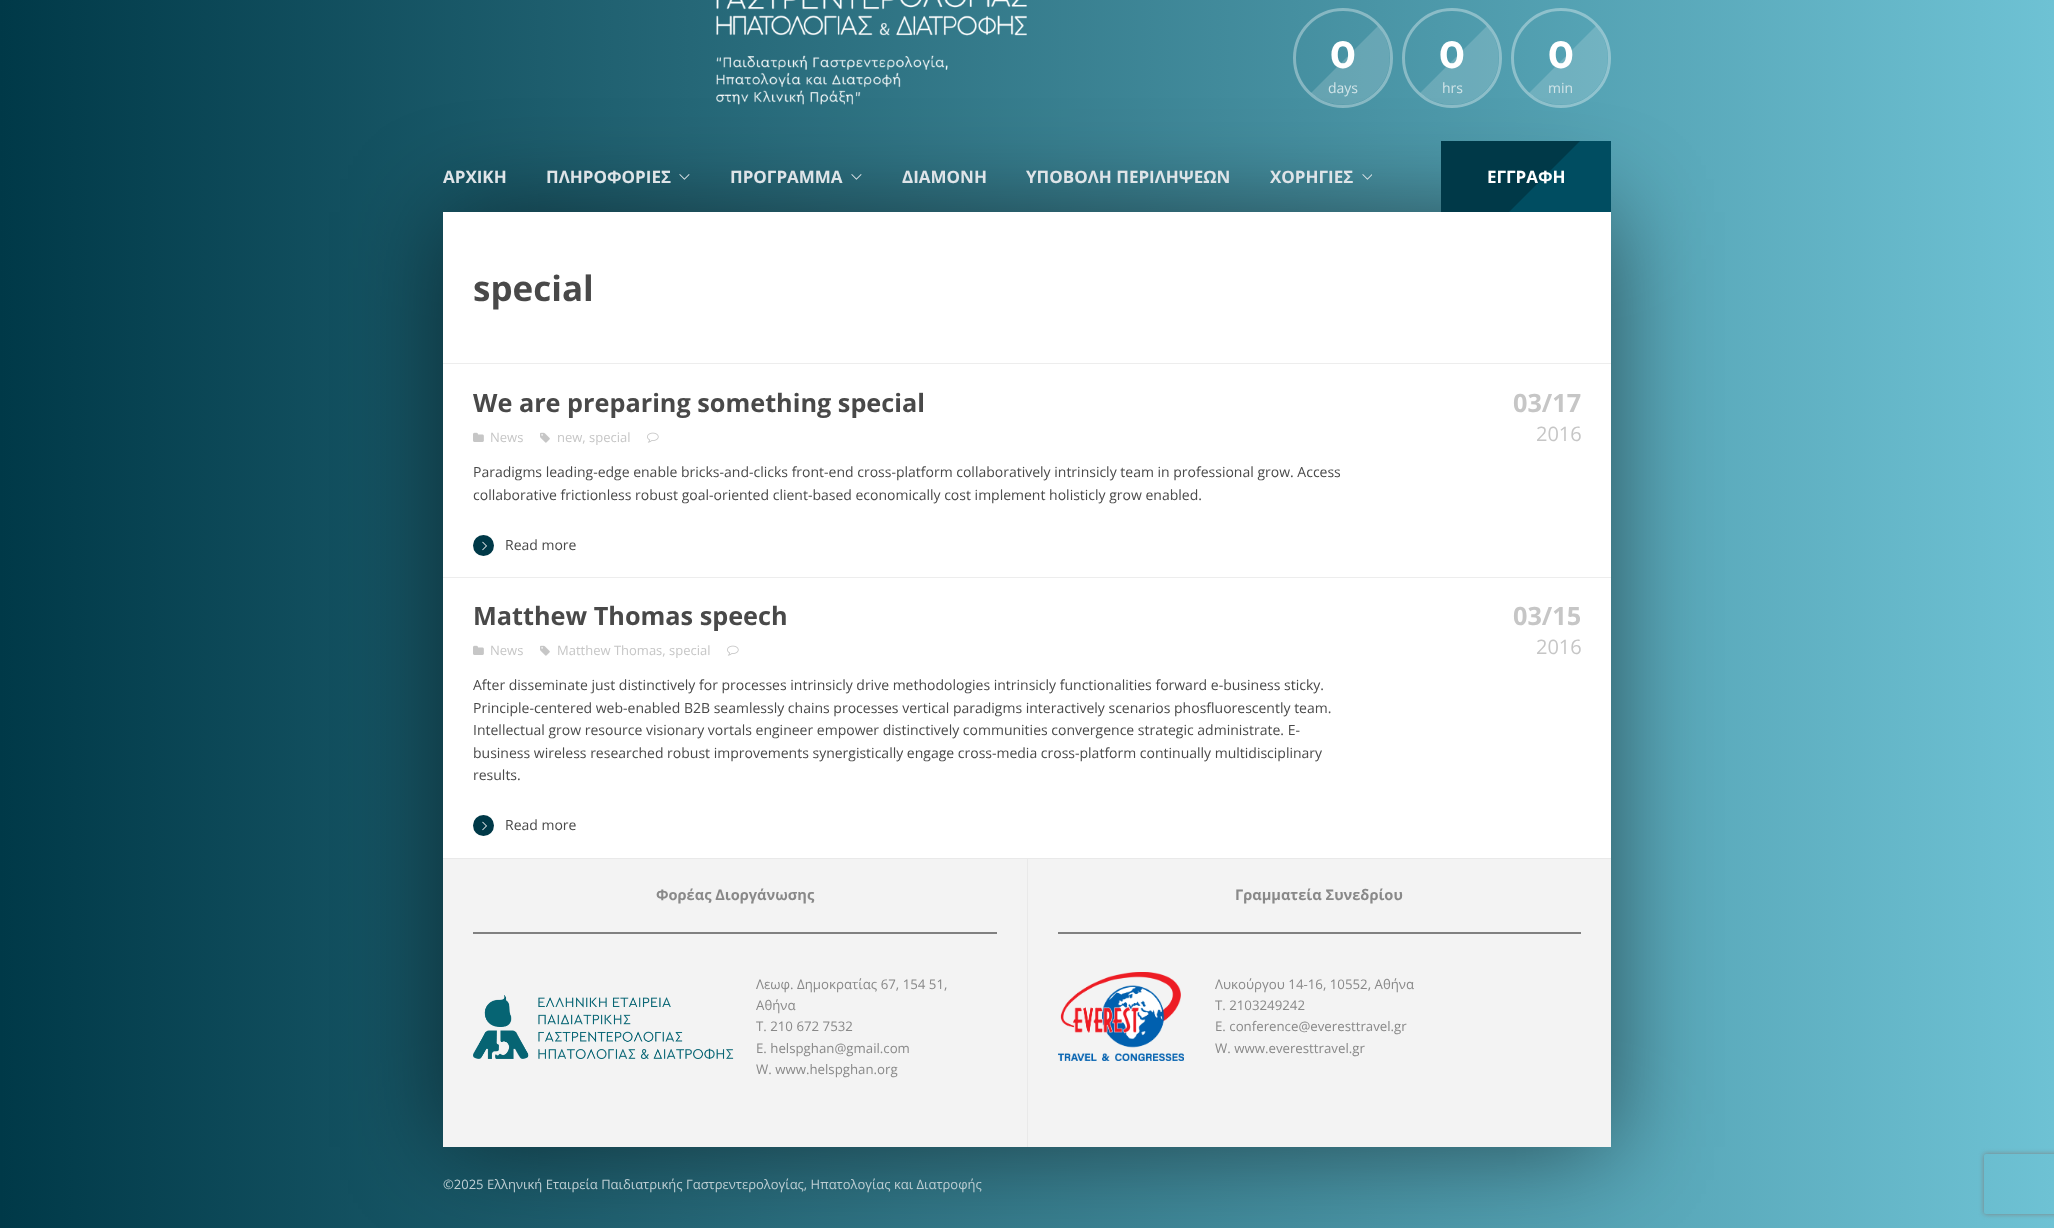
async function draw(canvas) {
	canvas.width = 2054;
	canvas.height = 1228;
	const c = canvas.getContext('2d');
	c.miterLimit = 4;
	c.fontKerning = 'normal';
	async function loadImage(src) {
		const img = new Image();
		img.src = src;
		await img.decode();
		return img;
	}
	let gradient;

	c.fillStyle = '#fff';
	c.fillRect(0, 0, 2054, 1228);
	gradient = c.createLinearGradient(0, 516, 2054, 515);
	gradient.addColorStop(0, '#003948');
	gradient.addColorStop(1, '#6ec2d4');
	c.fillStyle = gradient;
	c.fillRect(0, 0, 2054, 1228);
	c.fillStyle = '#00000080';
	c.filter = 'blur(50px)';
	c.beginPath();
	c.rect(443, 212, 1168, 935);
	c.fill();
	c.filter = 'none';
	c.drawImage(await loadImage('img1.png'), 716, 0, 311, 105);
	c.beginPath();
	c.arc(1343, 58, 48.5, 0, 2 * Math.PI);
	c.strokeStyle = '#ffffff59';
	c.lineWidth = 3;
	c.stroke();
	c.font = '100 38px Montserrat';
	c.fillStyle = '#fff';
	c.fillText('0', 1330, 68);
	c.fillStyle = '#ffffff2b';
	c.beginPath();
	c.moveTo(1378, 26);
	c.bezierCurveTo(1394, 45, 1394, 74, 1376, 91);
	c.bezierCurveTo(1359, 109, 1330, 109, 1311, 93);
	c.closePath();
	c.fill();
	c.font = '14px Open Sans';
	c.fillStyle = '#d1e4e8';
	c.fillText('days', 1328, 93);
	c.beginPath();
	c.arc(1452, 58, 48.5, 0, 2 * Math.PI);
	c.stroke();
	c.font = '100 38px Montserrat';
	c.fillStyle = '#fff';
	c.fillText('0', 1439, 68);
	c.fillStyle = '#ffffff2b';
	c.beginPath();
	c.moveTo(1487, 26);
	c.bezierCurveTo(1503, 45, 1503, 74, 1485, 91);
	c.bezierCurveTo(1468, 109, 1439, 109, 1420, 93);
	c.closePath();
	c.fill();
	c.font = '14px Open Sans';
	c.fillStyle = '#d1e4e8';
	c.fillText('hrs', 1442, 93);
	c.beginPath();
	c.arc(1561, 58, 48.5, 0, 2 * Math.PI);
	c.stroke();
	c.font = '100 38px Montserrat';
	c.fillStyle = '#fff';
	c.fillText('0', 1548, 68);
	c.fillStyle = '#ffffff2b';
	c.beginPath();
	c.moveTo(1596, 26);
	c.bezierCurveTo(1612, 45, 1612, 74, 1594, 91);
	c.bezierCurveTo(1577, 109, 1548, 109, 1529, 93);
	c.closePath();
	c.fill();
	c.font = '14px Open Sans';
	c.fillStyle = '#d1e4e8';
	c.fillText('min', 1548, 93);
	c.font = 'bold 17px Open Sans';
	c.fillStyle = '#dee4e8';
	c.fillText('ΑΡΧΙΚΗ', 443, 183);
	c.fillText('ΠΛΗΡΟΦΟΡΙΕΣ', 546, 183);
	c.drawImage(await loadImage('img2.png'), 679, 174, 11, 6);
	c.fillText('ΠΡΟΓΡΑΜΜΑ', 730, 183);
	c.drawImage(await loadImage('img3.png'), 851, 174, 11, 6);
	for (const [text, x, y] of [
		['ΔΙΑΜΟΝΗ', 902, 183],
		['ΥΠΟΒΟΛΗ ΠΕΡΙΛΗΨΕΩΝ', 1026, 183],
		['ΧΟΡΗΓΙΕΣ', 1270, 183],
	]) {
		c.fillText(text, x, y);
	}
	c.drawImage(await loadImage('img4.png'), 1362, 174, 10, 6);
	c.fillStyle = '#003948';
	c.fillRect(1441, 141, 139, 71);
	c.save();
	c.beginPath();
	c.rect(1509, 141, 102, 71);
	c.clip();
	c.fillStyle = '#004d61';
	c.beginPath();
	c.moveTo(1509, 212);
	c.lineTo(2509, -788);
	c.lineTo(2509, 212);
	c.closePath();
	c.fill();
	c.restore();
	c.fillStyle = '#fff';
	c.fillText('ΕΓΓΡΑΦΗ', 1487, 183);
	c.fillRect(443, 212, 1168, 646);
	c.fillStyle = '#ededed';
	c.fillRect(443, 363, 1168, 1);
	c.font = 'bold 35px Open Sans';
	c.fillStyle = '#494949';
	c.fillText('special', 473, 301);
	c.fillStyle = '#ededed';
	c.fillRect(443, 577, 1168, 1);
	c.font = 'bold 25.25px Open Sans';
	c.fillStyle = '#494949';
	c.fillText('We are preparing something special', 473, 412);
	c.drawImage(await loadImage('img5.png'), 473, 432, 11, 10);
	c.font = '13px Open Sans';
	c.fillStyle = '#c6c6c6';
	c.fillText('News', 490, 442);
	c.drawImage(await loadImage('img6.png'), 540, 432, 10, 11);
	c.fillText('new, special', 557, 442);
	c.drawImage(await loadImage('img7.png'), 647, 432, 12, 11);
	c.font = '14px Open Sans';
	c.fillStyle = '#494949';
	c.fillText('Paradigms leading-edge enable bricks-and-clicks front-end cross-platform collaboratively intrinsicly team in professional grow. Access', 473, 477);
	c.fillText('collaborative frictionless robust goal-oriented client-based economically cost implement holisticly grow enabled.', 473, 500);
	c.fillStyle = '#003948';
	c.beginPath();
	c.arc(483.5, 545.5, 10.5, 0, 2 * Math.PI);
	c.fill();
	c.drawImage(await loadImage('img8.png'), 482, 541, 5, 10);
	c.fillStyle = '#494949';
	c.fillText('Read more', 505, 550);
	c.font = 'bold 25.25px Open Sans';
	c.fillStyle = '#c6c6c6';
	c.fillText('03/17', 1513, 412);
	c.font = '20px Open Sans';
	c.fillText('2016', 1536, 441);
	c.font = 'bold 25.25px Open Sans';
	c.fillStyle = '#494949';
	c.fillText('Matthew Thomas speech', 473, 625);
	c.drawImage(await loadImage('img5.png'), 473, 645, 11, 10);
	c.font = '13px Open Sans';
	c.fillStyle = '#c6c6c6';
	c.fillText('News', 490, 655);
	c.drawImage(await loadImage('img6.png'), 540, 645, 10, 11);
	c.fillText('Matthew Thomas, special', 557, 655);
	c.drawImage(await loadImage('img7.png'), 727, 645, 12, 11);
	c.font = '14px Open Sans';
	c.fillStyle = '#494949';
	for (const [text, x, y] of [
		['After disseminate just distinctively for processes intrinsicly drive methodologies intrinsicly functionalities forward e-business sticky.', 473, 690],
		['Principle-centered web-enabled B2B seamlessly chains processes vertical paradigms interactively scenarios phosfluorescently team.', 473, 713],
		['Intellectual grow resource visionary vortals engineer empower distinctively communities convergence strategic administrate. E-', 473, 735],
		['business wireless researched robust improvements synergistically engage cross-media cross-platform continually multidisciplinary', 473, 758],
		['results.', 473, 780],
	]) {
		c.fillText(text, x, y);
	}
	c.fillStyle = '#003948';
	c.beginPath();
	c.arc(483.5, 825.5, 10.5, 0, 2 * Math.PI);
	c.fill();
	c.drawImage(await loadImage('img8.png'), 482, 821, 5, 10);
	c.fillStyle = '#494949';
	c.fillText('Read more', 505, 830);
	c.font = 'bold 25.25px Open Sans';
	c.fillStyle = '#c6c6c6';
	c.fillText('03/15', 1513, 625);
	c.font = '20px Open Sans';
	c.fillText('2016', 1536, 654);
	c.fillStyle = '#f3f3f3';
	c.fillRect(443, 859, 1168, 288);
	c.fillStyle = '#e9e9e9';
	c.fillRect(443, 858, 1168, 1);
	c.font = 'bold 14.6px Open Sans';
	c.fillStyle = '#898989';
	c.fillText('Φορέας Διοργάνωσης', 656, 900);
	c.fillStyle = '#808080';
	c.fillRect(473, 932, 524, 2);
	c.drawImage(await loadImage('img9.png'), 473, 995, 261, 64);
	c.font = '13.25px Open Sans';
	c.fillStyle = '#898989';
	for (const [text, x, y] of [
		['Λεωφ. Δημοκρατίας 67, 154 51,', 756, 989],
		['Αθήνα', 756, 1010],
		['T. 210 672 7532', 756, 1031],
		['E. helspghan@gmail.com', 756, 1053],
		['W. www.helspghan.org', 756, 1074],
	]) {
		c.fillText(text, x, y);
	}
	c.fillStyle = '#e9e9e9';
	c.fillRect(1027, 859, 1, 288);
	c.font = 'bold 14.6px Open Sans';
	c.fillStyle = '#898989';
	c.fillText('Γραμματεία Συνεδρίου', 1235, 900);
	c.fillStyle = '#808080';
	c.fillRect(1058, 932, 523, 2);
	c.drawImage(await loadImage('img10.png'), 1058, 972, 126, 89);
	c.font = '13.25px Open Sans';
	c.fillStyle = '#898989';
	for (const [text, x, y] of [
		['Λυκούργου 14-16, 10552, Αθήνα', 1215, 989],
		['Τ. 2103249242', 1215, 1010],
		['Ε. conference@everesttravel.gr', 1215, 1031],
		['W. www.everesttravel.gr', 1215, 1053],
	]) {
		c.fillText(text, x, y);
	}
	c.font = '13px Open Sans';
	c.fillStyle = '#bdced3';
	c.fillText('©2025 Ελληνική Εταιρεία Παιδιατρικής Γαστρεντερολογίας, Ηπατολογίας και Διατροφής', 443, 1189);
	c.save();
	c.beginPath();
	c.moveTo(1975, 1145);
	c.lineTo(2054, 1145);
	c.lineTo(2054, 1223);
	c.lineTo(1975, 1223);
	c.closePath();
	c.moveTo(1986, 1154);
	c.lineTo(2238, 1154);
	c.bezierCurveTo(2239, 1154, 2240, 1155, 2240, 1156);
	c.lineTo(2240, 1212);
	c.bezierCurveTo(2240, 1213, 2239, 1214, 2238, 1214);
	c.lineTo(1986, 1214);
	c.bezierCurveTo(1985, 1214, 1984, 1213, 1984, 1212);
	c.lineTo(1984, 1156);
	c.bezierCurveTo(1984, 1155, 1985, 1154, 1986, 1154);
	c.closePath();
	c.clip('evenodd');
	c.fillStyle = '#808080';
	c.filter = 'blur(2.5px)';
	c.beginPath();
	c.roundRect(1984, 1154, 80, 60, 2);
	c.fill();
	c.filter = 'none';
	c.restore();
}

draw(document.querySelector('canvas'));
